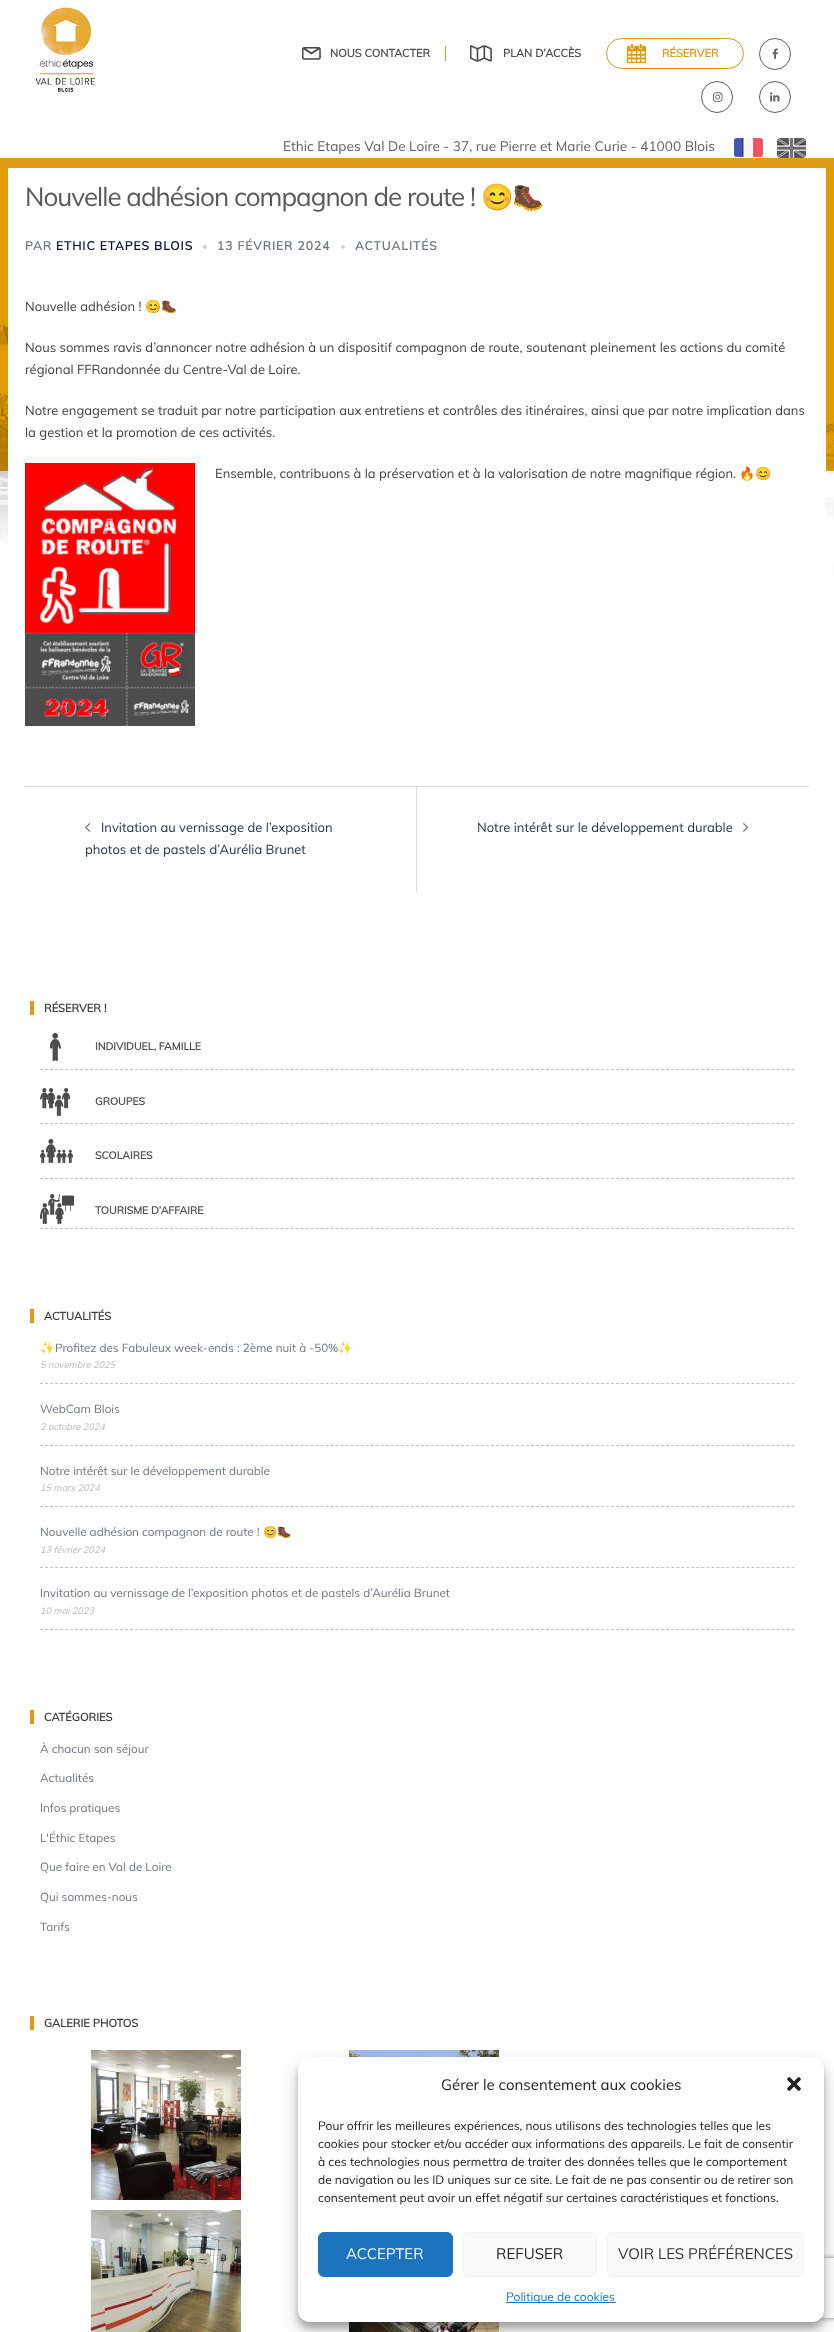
async function draw(canvas) {
	canvas.width = 834;
	canvas.height = 2332;
	const c = canvas.getContext('2d');
	c.miterLimit = 4;
	c.fontKerning = 'normal';
	async function loadImage(src) {
		const img = new Image();
		img.src = src;
		await img.decode();
		return img;
	}

	c.fillStyle = '#fff';
	c.fillRect(0, 0, 834, 2332);
	c.drawImage(await loadImage('img1.png'), 35, 7, 61, 85);
	c.drawImage(await loadImage('img2.png'), 302, 47, 19, 13);
	c.font = 'bold 11px Muli';
	c.fillStyle = '#4f4f4f';
	c.fillText('NOUS CONTACTER', 330, 57);
	c.fillStyle = '#de9916';
	c.fillRect(445, 46, 1, 15);
	c.drawImage(await loadImage('img3.png'), 470, 45, 22, 17);
	c.fillStyle = '#4f4f4f';
	c.fillText('PLAN D’ACCÈS', 503, 57);
	c.drawImage(await loadImage('img4.png'), 627, 44, 19, 19);
	c.beginPath();
	c.roundRect(606.5, 38.5, 137, 30, 15);
	c.strokeStyle = '#de9916';
	c.stroke();
	c.fillStyle = '#de9916';
	c.fillText('RÉSERVER', 662, 57);
	c.beginPath();
	c.arc(775, 54, 15.5, 0, 2 * Math.PI);
	c.strokeStyle = '#6a5d5b';
	c.stroke();
	c.drawImage(await loadImage('img5.png'), 772, 48, 6, 11);
	c.beginPath();
	c.arc(717, 97, 15.5, 0, 2 * Math.PI);
	c.stroke();
	c.drawImage(await loadImage('img6.png'), 713, 92, 10, 10);
	c.beginPath();
	c.arc(775, 97, 15.5, 0, 2 * Math.PI);
	c.stroke();
	c.drawImage(await loadImage('img7.png'), 770, 92, 10, 10);
	c.font = '13.65px Muli';
	c.fillStyle = '#5f605f';
	c.fillText('Ethic Etapes Val De Loire - 37, rue Pierre et Marie Curie - 41000 Blois', 283, 151);
	c.drawImage(await loadImage('img8.png'), 734, 138, 29, 19);
	c.drawImage(await loadImage('img9.png'), 777, 138, 29, 20);
	c.fillStyle = '#df9a17';
	c.fillRect(0, 158, 834, 10);
	c.drawImage(await loadImage('img10.png'), 0, 168, 834, 410);
	c.fillStyle = '#fff';
	c.fillRect(8, 168, 818, 410);
	c.letterSpacing = '-1px';
	c.font = '26px Muli';
	c.fillStyle = '#595959';
	c.fillText('Nouvelle adhésion compagnon de route !', 25, 206);
	c.font = '26px Noto Color Emoji';
	c.fillText('😊🥾', 481, 206);
	c.letterSpacing = '1px';
	c.font = 'bold 12px Muli';
	c.fillStyle = '#6d7685';
	c.fillText('PAR', 25, 250);
	c.fillStyle = '#00102e';
	c.fillText('ETHIC ETAPES BLOIS', 56, 250);
	c.fillStyle = '#cccfd5';
	c.beginPath();
	c.arc(205, 247, 2, 0, 2 * Math.PI);
	c.fill();
	c.fillStyle = '#6d7685';
	c.fillText('13 FÉVRIER 2024', 217, 250);
	c.fillStyle = '#cccfd5';
	c.beginPath();
	c.arc(343, 247, 2, 0, 2 * Math.PI);
	c.fill();
	c.fillStyle = '#6d7685';
	c.fillText('ACTUALITÉS', 355, 250);
	c.letterSpacing = '0px';
	c.font = '13px Muli';
	c.fillStyle = '#3f3f3f';
	c.fillText('Nouvelle adhésion !', 25, 311);
	c.font = '13px Noto Color Emoji';
	c.fillText('😊🥾', 145, 311);
	c.font = '13px Muli';
	for (const [text, x, y] of [
		['Nous sommes ravis d’annoncer notre adhésion à un dispositif compagnon de route, soutenant pleinement les actions du comité', 25, 352],
		['régional FFRandonnée du Centre-Val de Loire.', 25, 374],
		['Notre engagement se traduit par notre participation aux entretiens et contrôles des itinéraires, ainsi que par notre implication dans', 25, 415],
		['la gestion et la promotion de ces activités.', 25, 437],
	]) {
		c.fillText(text, x, y);
	}
	c.drawImage(await loadImage('img11.png'), 25, 463, 170, 263);
	c.fillText('Ensemble, contribuons à la préservation et à la valorisation de notre magnifique région.', 215, 478);
	c.font = '13px Noto Color Emoji';
	c.fillText('🔥😊', 739, 478);
	c.fillStyle = '#dbdbdb';
	c.fillRect(25, 786, 784, 1);
	c.fillRect(416, 787, 1, 104);
	c.drawImage(await loadImage('img12.png'), 85, 823, 6, 9);
	c.font = '13px Muli';
	c.fillStyle = '#233452';
	for (const [text, x, y] of [
		['Invitation au vernissage de l’exposition', 101, 832],
		['photos et de pastels d’Aurélia Brunet', 85, 854],
		['Notre intérêt sur le développement durable', 477, 832],
	]) {
		c.fillText(text, x, y);
	}
	c.drawImage(await loadImage('img13.png'), 743, 823, 6, 9);
	c.fillStyle = '#de9916';
	c.fillRect(30, 1001, 4, 14);
	c.font = 'bold 11.1px Muli';
	c.fillStyle = '#3f3f3f';
	c.fillText('RÉSERVER !', 44, 1012);
	c.beginPath();
	c.moveTo(40, 1069.5);
	c.lineTo(794, 1069.5);
	c.strokeStyle = '#c2c2c2';
	c.setLineDash([3, 2.01]);
	c.stroke();
	c.drawImage(await loadImage('img14.png'), 50, 1033, 11, 28);
	c.font = 'bold 10.5px Muli';
	c.fillStyle = '#4f4f4f';
	c.fillText('INDIVIDUEL, FAMILLE', 95, 1050);
	c.beginPath();
	c.moveTo(40, 1123.5);
	c.lineTo(794, 1123.5);
	c.stroke();
	c.drawImage(await loadImage('img15.png'), 40, 1088, 30, 28);
	c.fillText('GROUPES', 95, 1105);
	c.beginPath();
	c.moveTo(40, 1178.5);
	c.lineTo(794, 1178.5);
	c.stroke();
	c.drawImage(await loadImage('img16.png'), 40, 1139, 33, 24);
	c.fillText('SCOLAIRES', 95, 1159);
	c.beginPath();
	c.moveTo(40, 1228.5);
	c.lineTo(794, 1228.5);
	c.stroke();
	c.drawImage(await loadImage('img17.png'), 40, 1194, 34, 30);
	c.fillText('TOURISME D’AFFAIRE', 95, 1214);
	c.fillStyle = '#de9916';
	c.fillRect(30, 1309, 4, 14);
	c.font = 'bold 11.1px Muli';
	c.fillStyle = '#3f3f3f';
	c.fillText('ACTUALITÉS', 44, 1320);
	c.beginPath();
	c.moveTo(40, 1383.5);
	c.lineTo(794, 1383.5);
	c.stroke();
	c.font = '11.7px Noto Color Emoji';
	c.fillStyle = '#6d7685';
	c.fillText('✨', 40, 1352);
	c.font = '11.7px Muli';
	c.fillText('Profitez des Fabuleux week-ends : 2ème nuit à -50%', 55, 1352);
	c.font = '11.7px Noto Color Emoji';
	c.fillText('✨', 338, 1352);
	c.font = 'italic 9.25px Muli';
	c.fillStyle = '#b9b9b9';
	c.fillText('5 novembre 2025', 40, 1368);
	c.beginPath();
	c.moveTo(40, 1445.5);
	c.lineTo(794, 1445.5);
	c.stroke();
	c.font = '11.7px Muli';
	c.fillStyle = '#6d7685';
	c.fillText('WebCam Blois', 40, 1413);
	c.font = 'italic 9.25px Muli';
	c.fillStyle = '#b9b9b9';
	c.fillText('2 octobre 2024', 40, 1430);
	c.beginPath();
	c.moveTo(40, 1506.5);
	c.lineTo(794, 1506.5);
	c.stroke();
	c.font = '11.7px Muli';
	c.fillStyle = '#6d7685';
	c.fillText('Notre intérêt sur le développement durable', 40, 1475);
	c.font = 'italic 9.25px Muli';
	c.fillStyle = '#b9b9b9';
	c.fillText('15 mars 2024', 40, 1491);
	c.beginPath();
	c.moveTo(40, 1567.5);
	c.lineTo(794, 1567.5);
	c.stroke();
	c.font = '11.7px Muli';
	c.fillStyle = '#6d7685';
	c.fillText('Nouvelle adhésion compagnon de route !', 40, 1536);
	c.font = '11.7px Noto Color Emoji';
	c.fillText('😊🥾', 263, 1536);
	c.font = 'italic 9.25px Muli';
	c.fillStyle = '#b9b9b9';
	c.fillText('13 février 2024', 40, 1553);
	c.beginPath();
	c.moveTo(40, 1629.5);
	c.lineTo(794, 1629.5);
	c.stroke();
	c.font = '11.7px Muli';
	c.fillStyle = '#6d7685';
	c.fillText('Invitation au vernissage de l’exposition photos et de pastels d’Aurélia Brunet', 40, 1597);
	c.font = 'italic 9.25px Muli';
	c.fillStyle = '#b9b9b9';
	c.fillText('10 mai 2023', 40, 1614);
	c.fillStyle = '#de9916';
	c.fillRect(30, 1710, 4, 14);
	c.font = 'bold 11.1px Muli';
	c.fillStyle = '#3f3f3f';
	c.fillText('CATÉGORIES', 44, 1721);
	c.font = '11.7px Muli';
	c.fillStyle = '#6d7685';
	for (const [text, x, y] of [
		['À chacun son séjour', 40, 1753],
		['Actualités', 40, 1782],
		['Infos pratiques', 40, 1812],
		['L\'Éthic Etapes', 40, 1842],
		['Que faire en Val de Loire', 40, 1871],
		['Qui sommes-nous', 40, 1901],
		['Tarifs', 40, 1931],
	]) {
		c.fillText(text, x, y);
	}
	c.fillStyle = '#de9916';
	c.fillRect(30, 2016, 4, 14);
	c.font = 'bold 11.1px Muli';
	c.fillStyle = '#3f3f3f';
	c.fillText('GALERIE PHOTOS', 44, 2027);
	c.drawImage(await loadImage('img18.png'), 91, 2050, 150, 150);
	c.drawImage(await loadImage('img19.png'), 349, 2050, 150, 7);
	c.drawImage(await loadImage('img20.png'), 91, 2210, 150, 122);
	c.drawImage(await loadImage('img21.png'), 349, 2322, 150, 10);
	c.fillStyle = '#0000003b';
	c.filter = 'blur(3px)';
	c.beginPath();
	c.roundRect(298, 2063, 526, 265, 12);
	c.fill();
	c.filter = 'none';
	c.fillStyle = '#00000030';
	c.filter = 'blur(10px)';
	c.beginPath();
	c.roundRect(298, 2067, 526, 265, 12);
	c.fill();
	c.filter = 'none';
	c.save();
	c.beginPath();
	c.moveTo(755, 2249);
	c.lineTo(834, 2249);
	c.lineTo(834, 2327);
	c.lineTo(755, 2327);
	c.closePath();
	c.moveTo(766, 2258);
	c.lineTo(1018, 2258);
	c.bezierCurveTo(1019, 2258, 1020, 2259, 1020, 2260);
	c.lineTo(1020, 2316);
	c.bezierCurveTo(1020, 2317, 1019, 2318, 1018, 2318);
	c.lineTo(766, 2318);
	c.bezierCurveTo(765, 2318, 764, 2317, 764, 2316);
	c.lineTo(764, 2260);
	c.bezierCurveTo(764, 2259, 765, 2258, 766, 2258);
	c.closePath();
	c.clip('evenodd');
	c.fillStyle = '#808080';
	c.filter = 'blur(2.5px)';
	c.beginPath();
	c.roundRect(764, 2258, 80, 60, 2);
	c.fill();
	c.filter = 'none';
	c.restore();
	c.fillStyle = '#fff';
	c.beginPath();
	c.roundRect(298, 2057, 526, 265, 12);
	c.fill();
	c.font = '15px Muli';
	c.fillStyle = '#222';
	c.fillText('Gérer le consentement aux cookies', 441, 2090);
	c.drawImage(await loadImage('img22.png'), 787, 2077, 14, 14);
	c.font = '12px Muli';
	for (const [text, x, y] of [
		['Pour offrir les meilleures expériences, nous utilisons des technologies telles que les', 318, 2130],
		['cookies pour stocker et/ou accéder aux informations des appareils. Le fait de consentir', 318, 2148],
		['à ces technologies nous permettra de traiter des données telles que le comportement', 318, 2166],
		['de navigation ou les ID uniques sur ce site. Le fait de ne pas consentir ou de retirer son', 318, 2184],
		['consentement peut avoir un effet négatif sur certaines caractéristiques et fonctions.', 318, 2202],
	]) {
		c.fillText(text, x, y);
	}
	c.fillStyle = '#1e73be';
	c.beginPath();
	c.roundRect(318.5, 2232.5, 134, 44, 5.5);
	c.fill();
	c.strokeStyle = '#1e73be';
	c.setLineDash([]);
	c.stroke();
	c.font = '15px Muli';
	c.fillStyle = '#fff';
	c.fillText('ACCEPTER', 346, 2259);
	c.fillStyle = '#f9f9f9';
	c.beginPath();
	c.roundRect(463.5, 2232.5, 133, 44, 5.5);
	c.fill();
	c.strokeStyle = '#f2f2f2';
	c.stroke();
	c.fillStyle = '#222';
	c.fillText('REFUSER', 496, 2259);
	c.fillStyle = '#f9f9f9';
	c.beginPath();
	c.roundRect(607.5, 2232.5, 196, 44, 5.5);
	c.fill();
	c.stroke();
	c.fillStyle = '#333';
	c.fillText('VOIR LES PRÉFÉRENCES', 618, 2259);
	c.fillStyle = '#1e73be';
	c.fillRect(506, 2302, 110, 1);
	c.font = '12px Muli';
	c.fillText('Politique de cookies', 506, 2301);
}

draw(document.querySelector('canvas'));
